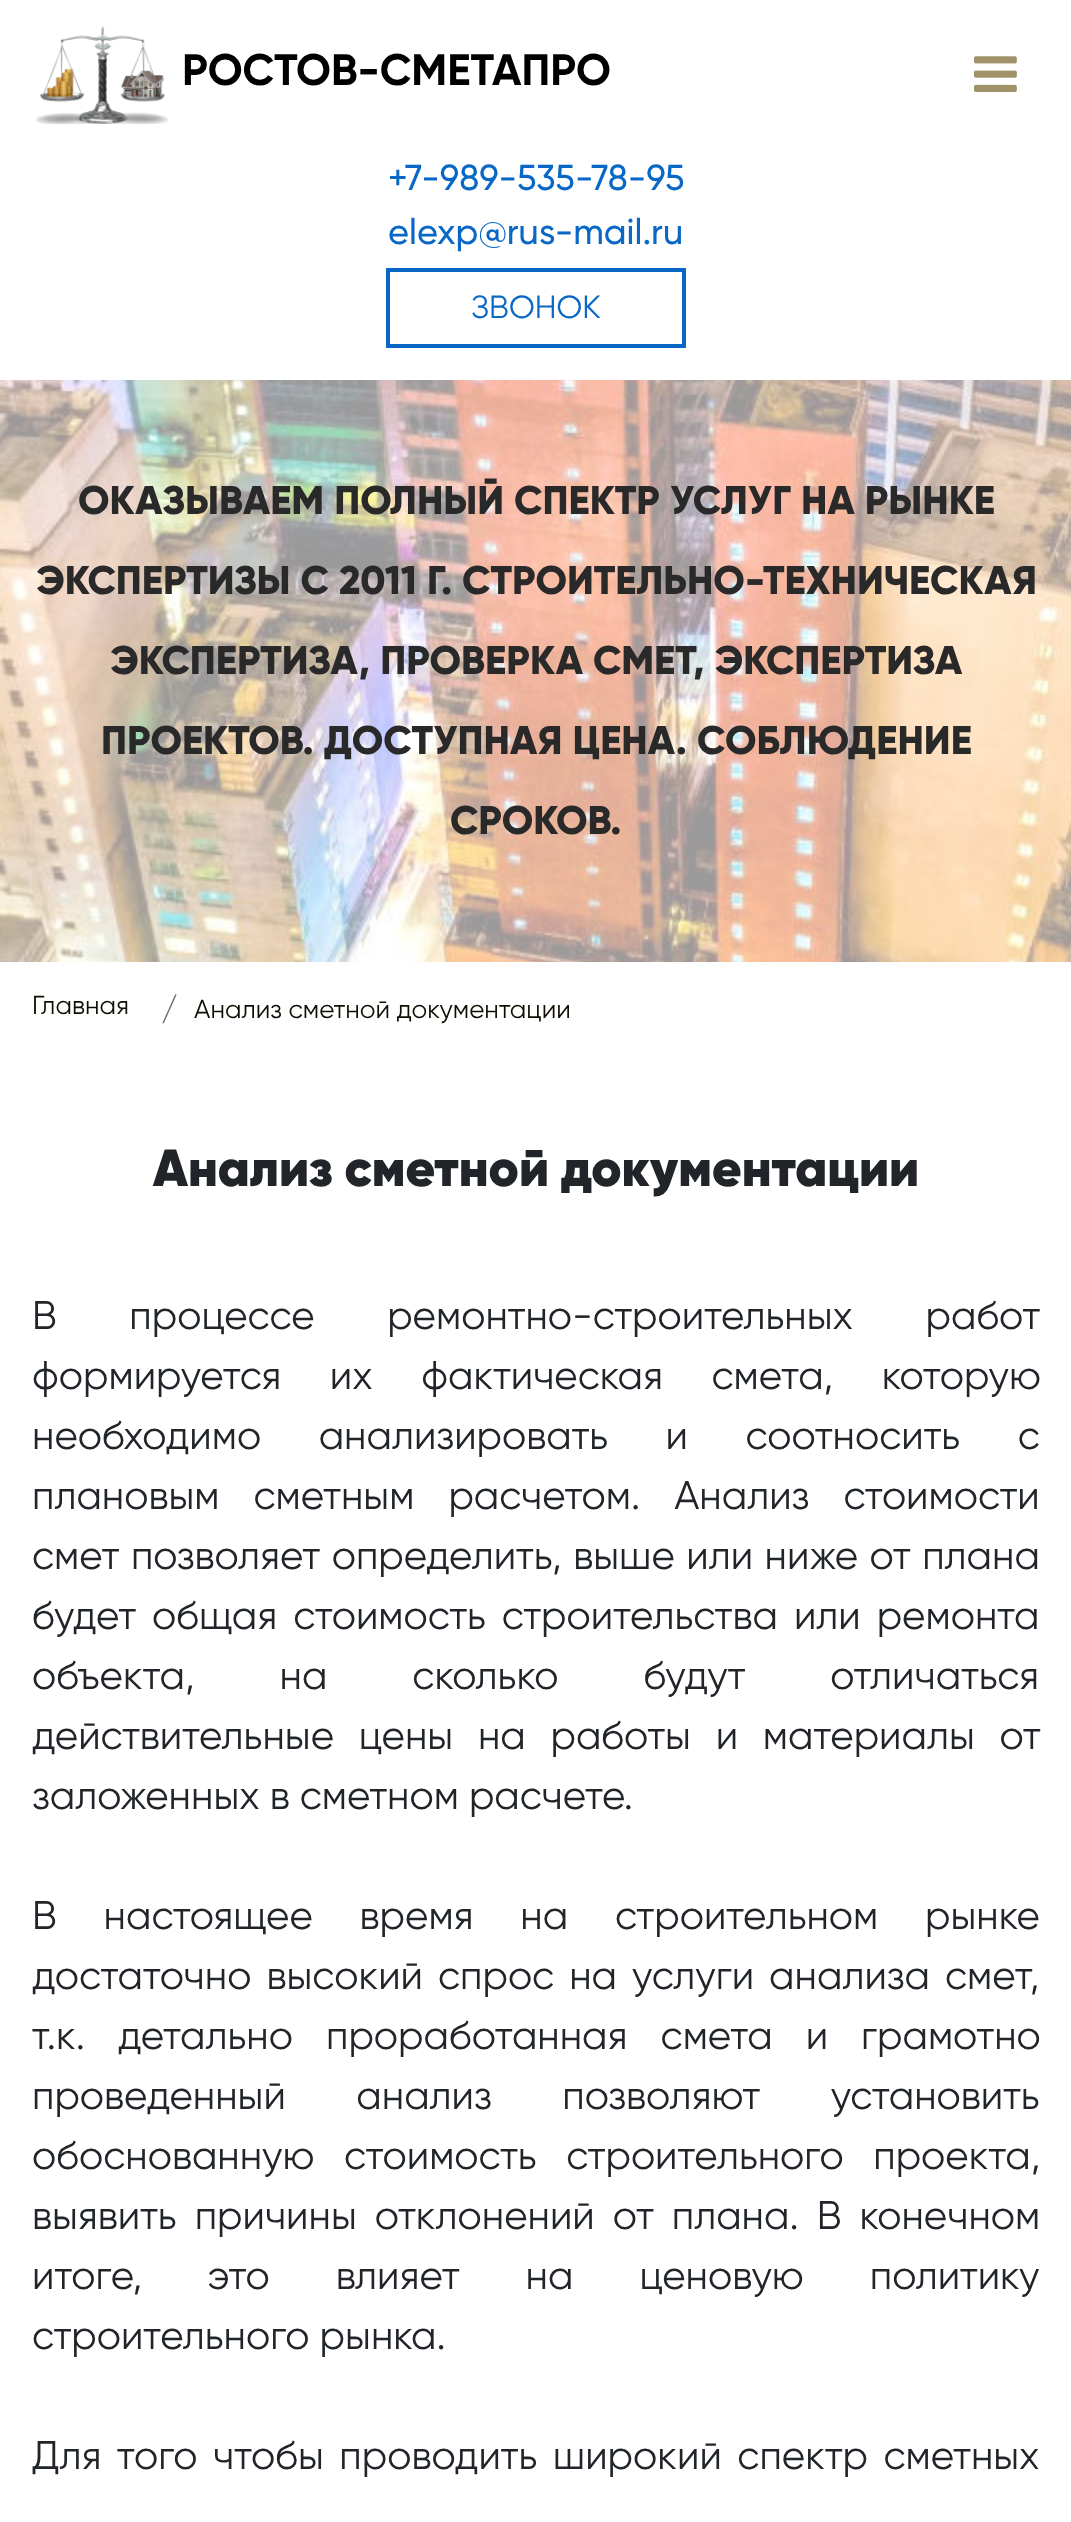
async function draw(canvas) {
	canvas.width = 1071;
	canvas.height = 2522;
	const c = canvas.getContext('2d');
	c.miterLimit = 4;
	c.fontKerning = 'normal';
	async function loadImage(src) {
		const img = new Image();
		img.src = src;
		await img.decode();
		return img;
	}

	c.fillStyle = '#fff';
	c.fillRect(0, 0, 1071, 2522);
	c.drawImage(await loadImage('img1.png'), 35, 26, 134, 98);
	c.font = 'bold 44px Gilroy';
	c.fillStyle = '#000';
	c.fillText('РОСТОВ-СМЕТАПРО', 182, 85);
	c.drawImage(await loadImage('img2.png'), 974, 56, 43, 36);
	c.font = '500 36px Gilroy';
	c.fillStyle = '#0967c5';
	c.fillText('+7-989-535-78-95', 388, 190);
	c.fillText('elexp@rus-mail.ru', 388, 244);
	c.strokeStyle = '#0967c5';
	c.lineWidth = 4;
	c.strokeRect(388, 270, 296, 76);
	c.font = '32px Gilroy';
	c.fillText('ЗВОНОК', 471, 318);
	c.drawImage(await loadImage('img3.png'), 0, 380, 1071, 582);
	c.font = '800 40px Gilroy';
	c.fillStyle = '#292929';
	for (const [text, x, y] of [
		['ОКАЗЫВАЕМ ПОЛНЫЙ СПЕКТР УСЛУГ НА РЫНКЕ', 78, 514],
		['ЭКСПЕРТИЗЫ С 2011 Г. СТРОИТЕЛЬНО-ТЕХНИЧЕСКАЯ', 36, 594],
		['ЭКСПЕРТИЗА, ПРОВЕРКА СМЕТ, ЭКСПЕРТИЗА', 110, 674],
		['ПРОЕКТОВ. ДОСТУПНАЯ ЦЕНА. СОБЛЮДЕНИЕ', 101, 754],
		['СРОКОВ.', 450, 834],
	]) {
		c.fillText(text, x, y);
	}
	c.font = '26px Gilroy';
	c.fillStyle = '#0f0d02';
	c.fillText('Главная', 32, 1014);
	c.font = '32px Gilroy';
	c.fillStyle = '#6c757d';
	c.fillText('/', 161, 1020);
	c.font = '26px Gilroy';
	c.fillStyle = '#0f0d02';
	c.fillText('Анализ сметной документации', 194, 1018);
	c.font = '900 52px Gilroy';
	c.fillStyle = '#212529';
	c.fillText('Анализ сметной документации', 153, 1186);
	c.wordSpacing = '62.5px';
	c.font = '40px Gilroy';
	c.fillText('В процессе ремонтно-строительных работ', 32, 1329);
	c.wordSpacing = '38.5px';
	c.fillText('формируется их фактическая смета, которую', 32, 1389);
	c.wordSpacing = '47.5px';
	c.fillText('необходимо анализировать и соотносить с', 32, 1449);
	c.wordSpacing = '24px';
	c.fillText('плановым сметным расчетом. Анализ стоимости', 32, 1509);
	c.wordSpacing = '1.5px';
	c.fillText('смет позволяет определить, выше или ниже от плана', 32, 1569);
	c.wordSpacing = '6px';
	c.fillText('будет общая стоимость строительства или ремонта', 32, 1629);
	c.wordSpacing = '75px';
	c.fillText('объекта, на сколько будут отличаться', 32, 1689);
	c.wordSpacing = '14.75px';
	c.fillText('действительные цены на работы и материалы от', 32, 1749);
	c.wordSpacing = '0px';
	c.fillText('заложенных в сметном расчете.', 32, 1809);
	c.wordSpacing = '36.75px';
	c.fillText('В настоящее время на строительном рынке', 32, 1929);
	c.wordSpacing = '5px';
	c.fillText('достаточно высокий спрос на услуги анализа смет,', 32, 1989);
	c.wordSpacing = '23px';
	c.fillText('т.к. детально проработанная смета и грамотно', 32, 2049);
	c.wordSpacing = '60.5px';
	c.fillText('проведенный анализ позволяют установить', 32, 2109);
	c.wordSpacing = '19.5px';
	c.fillText('обоснованную стоимость строительного проекта,', 32, 2169);
	c.wordSpacing = '8px';
	c.fillText('выявить причины отклонений от плана. В конечном', 32, 2229);
	c.wordSpacing = '56px';
	c.fillText('итоге, это влияет на ценовую политику', 32, 2289);
	c.wordSpacing = '0px';
	c.fillText('строительного рынка.', 32, 2349);
	c.wordSpacing = '5.5px';
	c.fillText('Для того чтобы проводить широкий спектр сметных', 32, 2469);
}

draw(document.querySelector('canvas'));
